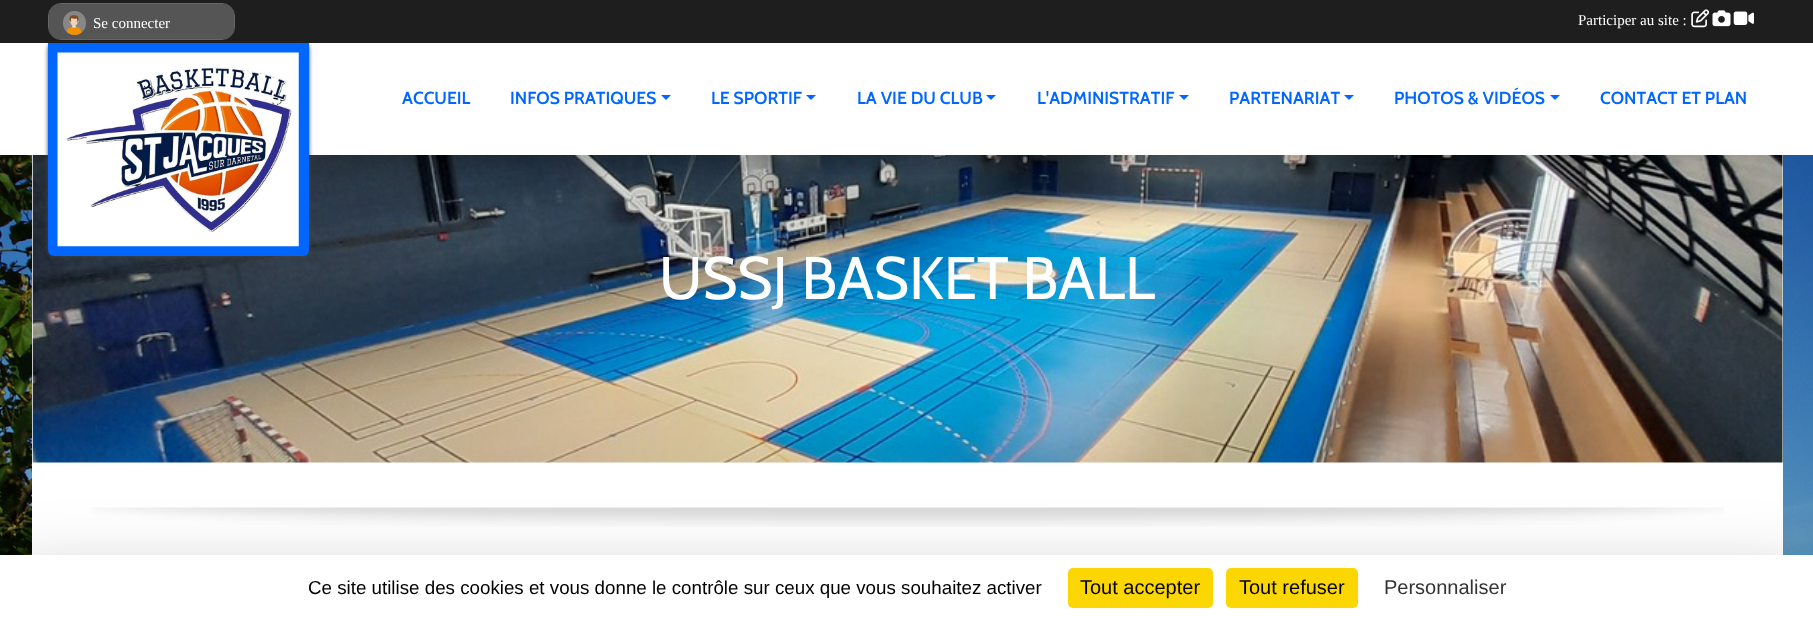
async function draw(canvas) {
	canvas.width = 1813;
	canvas.height = 620;
	const c = canvas.getContext('2d');
	c.miterLimit = 4;
	c.fontKerning = 'normal';
	async function loadImage(src) {
		const img = new Image();
		img.src = src;
		await img.decode();
		return img;
	}

	c.fillStyle = '#fff';
	c.fillRect(0, 0, 1813, 620);
	c.drawImage(await loadImage('img1.png'), 0, 155, 1813, 400);
	c.fillRect(32, 155, 1751, 400);
	c.drawImage(await loadImage('img8.png'), 32, 155, 1751, 308);
	c.drawImage(await loadImage('img7.png'), 309, 155, 1438, 20);
	c.fillStyle = '#444';
	c.filter = 'blur(2px)';
	c.beginPath();
	c.roundRect(48, 43, 261, 213, 6);
	c.fill();
	c.filter = 'none';
	c.fillStyle = '#1e1e1e';
	c.fillRect(0, 0, 1813, 43);
	c.beginPath();
	c.roundRect(48.5, 3.5, 186, 36, 12.5);
	c.strokeStyle = '#666';
	c.stroke();
	c.fillStyle = '#555';
	c.beginPath();
	c.roundRect(49, 4, 185, 35, 11);
	c.fill();
	c.drawImage(await loadImage('img2.png'), 63, 11, 23, 24);
	c.font = '15px Liberation Serif';
	c.fillStyle = '#fff';
	c.fillText('Se connecter', 93, 28);
	c.fillText('Participer au site :', 1578, 25);
	c.drawImage(await loadImage('img3.png'), 1691, 9, 19, 19);
	c.drawImage(await loadImage('img4.png'), 1712, 10, 19, 17);
	c.drawImage(await loadImage('img5.png'), 1733, 11, 21, 14);
	c.fillStyle = '#06f';
	c.beginPath();
	c.roundRect(48, 43, 261, 213, [0, 0, 6, 6]);
	c.fill();
	c.drawImage(await loadImage('img6.png'), 57, 52, 242, 195);
	c.font = '600 17.5px Cabin';
	c.fillText('ACCUEIL', 402, 104);
	c.fillText('INFOS PRATIQUES', 510, 104);
	c.beginPath();
	c.moveTo(661, 95);
	c.lineTo(671, 95);
	c.lineTo(666, 100);
	c.closePath();
	c.fill();
	c.fillText('LE SPORTIF', 711, 104);
	c.beginPath();
	c.moveTo(806, 95);
	c.lineTo(816, 95);
	c.lineTo(811, 100);
	c.closePath();
	c.fill();
	c.fillText('LA VIE DU CLUB', 857, 104);
	c.beginPath();
	c.moveTo(986, 95);
	c.lineTo(996, 95);
	c.lineTo(991, 100);
	c.closePath();
	c.fill();
	c.fillText('L\'ADMINISTRATIF', 1037, 104);
	c.beginPath();
	c.moveTo(1179, 95);
	c.lineTo(1189, 95);
	c.lineTo(1184, 100);
	c.closePath();
	c.fill();
	c.fillText('PARTENARIAT', 1229, 104);
	c.beginPath();
	c.moveTo(1344, 95);
	c.lineTo(1354, 95);
	c.lineTo(1349, 100);
	c.closePath();
	c.fill();
	c.fillText('PHOTOS & VIDÉOS', 1394, 104);
	c.beginPath();
	c.moveTo(1550, 95);
	c.lineTo(1560, 95);
	c.lineTo(1555, 100);
	c.closePath();
	c.fill();
	c.fillText('CONTACT ET PLAN', 1600, 104);
	c.font = '60px Cabin';
	c.fillStyle = '#fff';
	c.fillText('USSJ BASKET BALL', 659, 299);
	c.drawImage(await loadImage('img9.png'), 91, 507, 1633, 20);
	c.fillStyle = '#00000040';
	c.filter = 'blur(37.5px)';
	c.beginPath();
	c.rect(0, 580, 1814, 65);
	c.fill();
	c.filter = 'none';
	c.fillStyle = '#fff';
	c.fillRect(0, 555, 1813, 65);
	c.font = '18.75px Liberation Sans';
	c.fillStyle = '#000';
	c.fillText('Ce site utilise des cookies et vous donne le contrôle sur ceux que vous souhaitez activer', 308, 594);
	c.fillStyle = '#fbd600';
	c.beginPath();
	c.roundRect(1068, 568, 145, 40, 5);
	c.fill();
	c.font = '20px Liberation Sans';
	c.fillStyle = '#000';
	c.fillText('Tout accepter', 1080, 594);
	c.fillStyle = '#fbd600';
	c.beginPath();
	c.roundRect(1226, 568, 132, 40, 5);
	c.fill();
	c.fillStyle = '#000';
	c.fillText('Tout refuser', 1239, 594);
	c.fillStyle = '#333';
	c.fillText('Personnaliser', 1384, 594);
}

draw(document.querySelector('canvas'));
